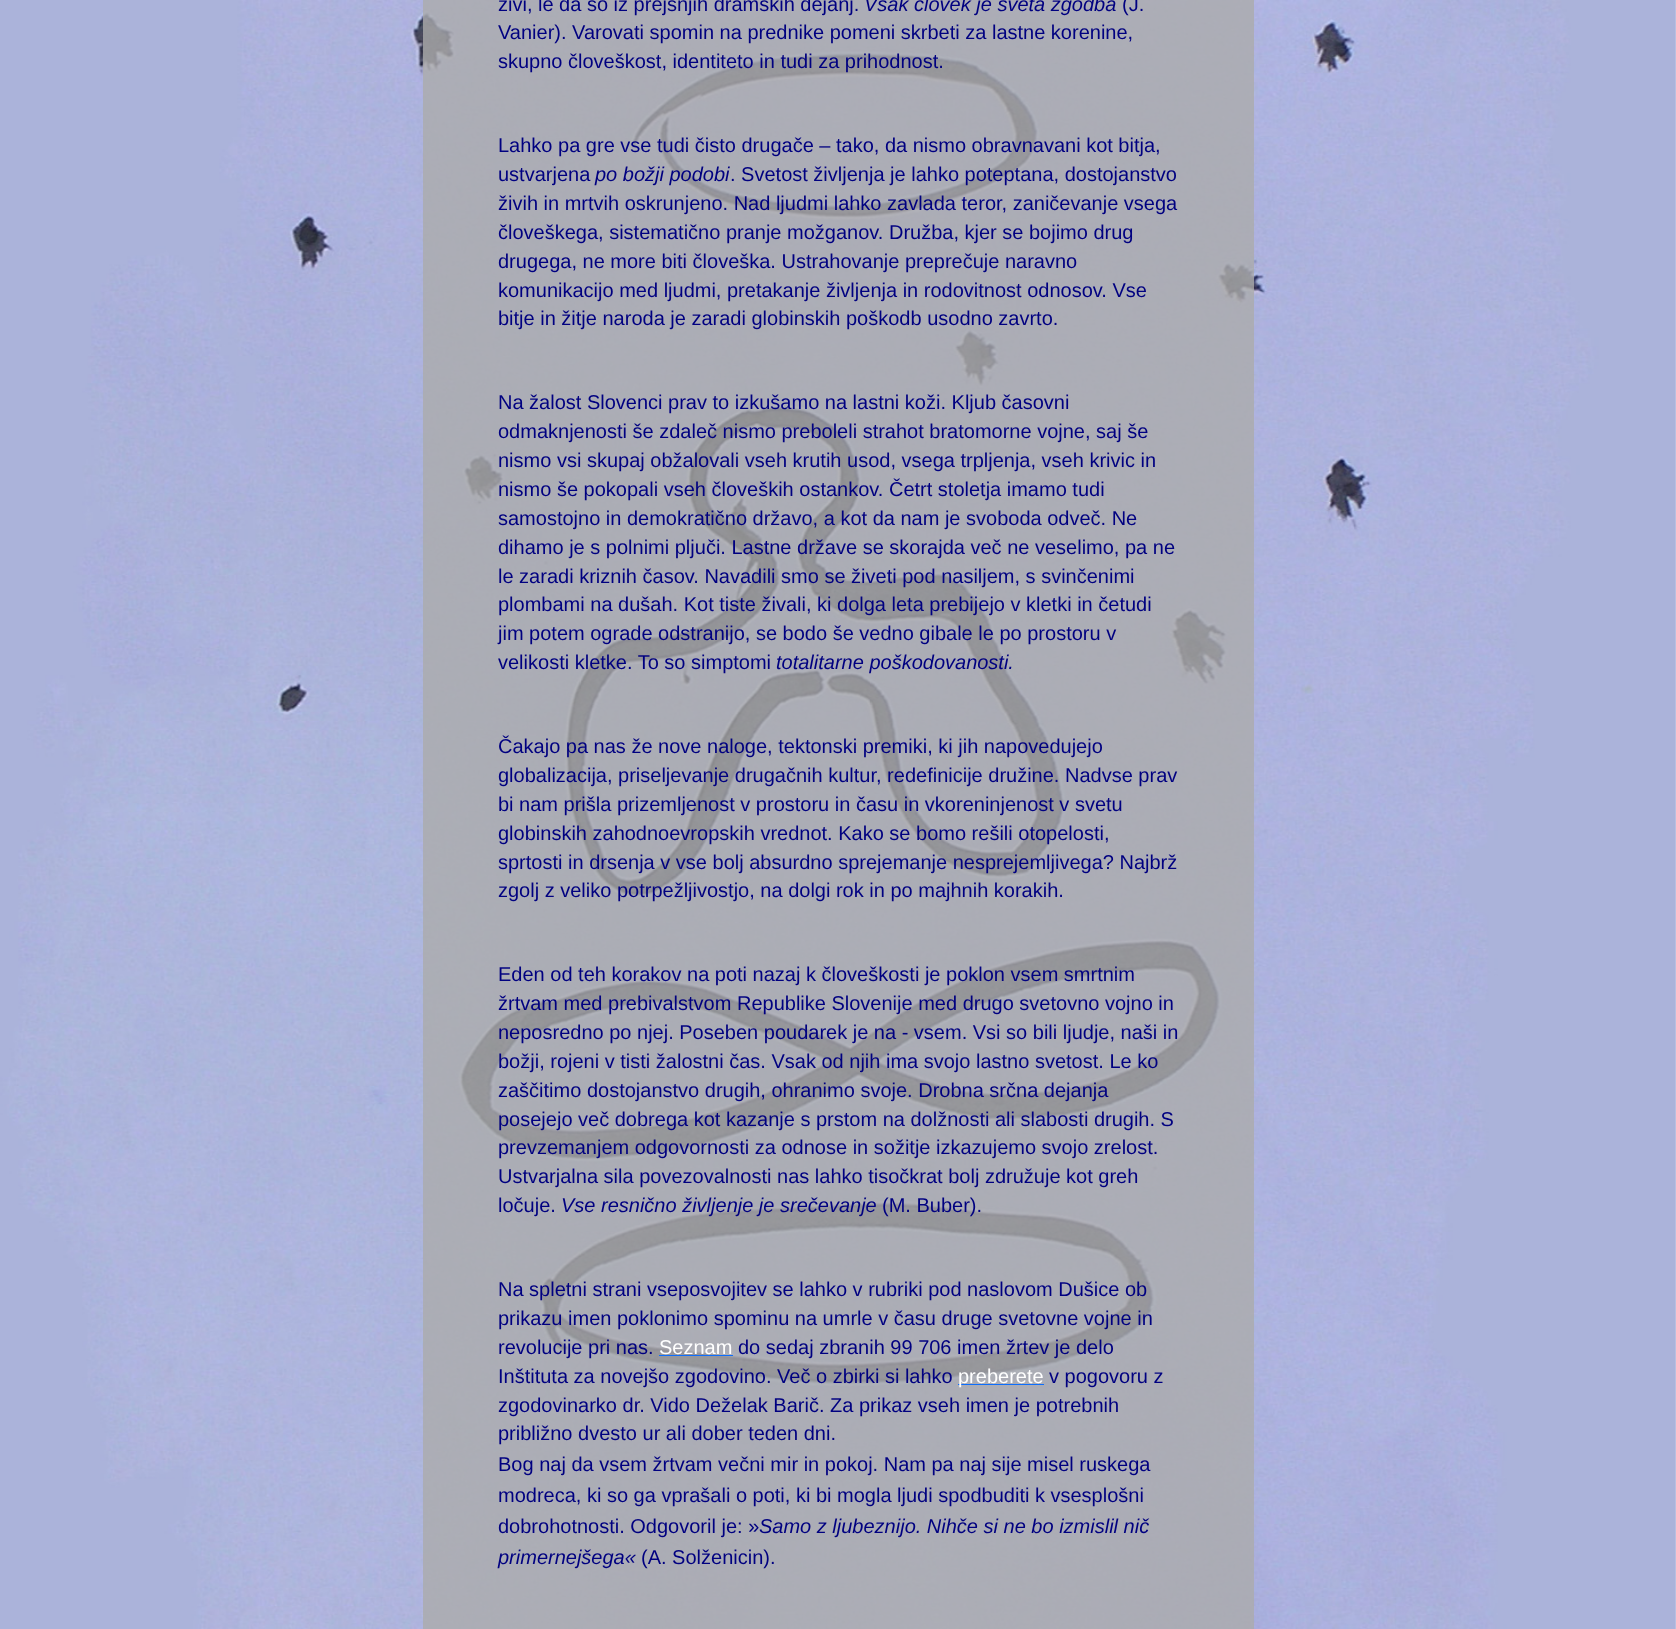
async function draw(canvas) {
	canvas.width = 1676;
	canvas.height = 1629;
	const c = canvas.getContext('2d');
	c.miterLimit = 4;
	c.fontKerning = 'normal';
	async function loadImage(src) {
		const img = new Image();
		img.src = src;
		await img.decode();
		return img;
	}

	c.fillStyle = '#fff';
	c.fillRect(0, 0, 1676, 1629);
	c.drawImage(await loadImage('img1.png'), 0, 0, 1676, 1629);
	c.fillStyle = '#abababcc';
	c.fillRect(423, 0, 831, 1629);
	c.font = '20px Liberation Sans';
	c.fillStyle = '#000080';
	c.fillText('živi, le da so iz prejšnjih dramskih dejanj.', 498, 11);
	c.font = 'italic 20px Liberation Sans';
	c.fillText('Vsak človek je sveta zgodba', 864, 11);
	c.font = '20px Liberation Sans';
	for (const [text, x, y] of [
		['(J.', 1122, 11],
		['Vanier). Varovati spomin na prednike pomeni skrbeti za lastne korenine,', 498, 39],
		['skupno človeškost, identiteto in tudi za prihodnost.', 498, 68],
		['Lahko pa gre vse tudi čisto drugače – tako, da nismo obravnavani kot bitja,', 498, 152],
		['ustvarjena', 498, 181],
	]) {
		c.fillText(text, x, y);
	}
	c.font = 'italic 20px Liberation Sans';
	c.fillText('po božji podobi', 595, 181);
	c.font = '20px Liberation Sans';
	for (const [text, x, y] of [
		['. Svetost življenja je lahko poteptana, dostojanstvo', 730, 181],
		['živih in mrtvih oskrunjeno. Nad ljudmi lahko zavlada teror, zaničevanje vsega', 498, 210],
		['človeškega, sistematično pranje možganov. Družba, kjer se bojimo drug', 498, 239],
		['drugega, ne more biti človeška. Ustrahovanje preprečuje naravno', 498, 268],
		['komunikacijo med ljudmi, pretakanje življenja in rodovitnost odnosov. Vse', 498, 297],
		['bitje in žitje naroda je zaradi globinskih poškodb usodno zavrto.', 498, 325],
		['Na žalost Slovenci prav to izkušamo na lastni koži. Kljub časovni', 498, 409],
		['odmaknjenosti še zdaleč nismo preboleli strahot bratomorne vojne, saj še', 498, 438],
		['nismo vsi skupaj obžalovali vseh krutih usod, vsega trpljenja, vseh krivic in', 498, 467],
		['nismo še pokopali vseh človeških ostankov. Četrt stoletja imamo tudi', 498, 496],
		['samostojno in demokratično državo, a kot da nam je svoboda odveč. Ne', 498, 525],
		['dihamo je s polnimi pljuči. Lastne države se skorajda več ne veselimo, pa ne', 498, 554],
		['le zaradi kriznih časov. Navadili smo se živeti pod nasiljem, s svinčenimi', 498, 583],
		['plombami na dušah. Kot tiste živali, ki dolga leta prebijejo v kletki in četudi', 498, 611],
		['jim potem ograde odstranijo, se bodo še vedno gibale le po prostoru v', 498, 640],
		['velikosti kletke. To so simptomi', 498, 669],
	]) {
		c.fillText(text, x, y);
	}
	c.font = 'italic 20px Liberation Sans';
	c.fillText('totalitarne poškodovanosti.', 776, 669);
	c.font = '20px Liberation Sans';
	for (const [text, x, y] of [
		['Čakajo pa nas že nove naloge, tektonski premiki, ki jih napovedujejo', 498, 753],
		['globalizacija, priseljevanje drugačnih kultur, redefinicije družine. Nadvse prav', 498, 782],
		['bi nam prišla prizemljenost v prostoru in času in vkoreninjenost v svetu', 498, 811],
		['globinskih zahodnoevropskih vrednot. Kako se bomo rešili otopelosti,', 498, 840],
		['sprtosti in drsenja v vse bolj absurdno sprejemanje nesprejemljivega? Najbrž', 498, 869],
		['zgolj z veliko potrpežljivostjo, na dolgi rok in po majhnih korakih.', 498, 897],
		['Eden od teh korakov na poti nazaj k človeškosti je poklon vsem smrtnim', 498, 981],
		['žrtvam med prebivalstvom Republike Slovenije med drugo svetovno vojno in', 498, 1010],
		['neposredno po njej. Poseben poudarek je na - vsem. Vsi so bili ljudje, naši in', 498, 1039],
		['božji, rojeni v tisti žalostni čas. Vsak od njih ima svojo lastno svetost. Le ko', 498, 1068],
		['zaščitimo dostojanstvo drugih, ohranimo svoje. Drobna srčna dejanja', 498, 1097],
		['posejejo več dobrega kot kazanje s prstom na dolžnosti ali slabosti drugih. S', 498, 1126],
		['prevzemanjem odgovornosti za odnose in sožitje izkazujemo svojo zrelost.', 498, 1154],
		['Ustvarjalna sila povezovalnosti nas lahko tisočkrat bolj združuje kot greh', 498, 1183],
		['ločuje.', 498, 1212],
	]) {
		c.fillText(text, x, y);
	}
	c.font = 'italic 20px Liberation Sans';
	c.fillText('Vse resnično življenje je srečevanje', 561, 1212);
	c.font = '20px Liberation Sans';
	for (const [text, x, y] of [
		['(M. Buber).', 882, 1212],
		['Na spletni strani vseposvojitev se lahko v rubriki pod naslovom Dušice ob', 498, 1296],
		['prikazu imen poklonimo spominu na umrle v času druge svetovne vojne in', 498, 1325],
		['revolucije pri nas.', 498, 1354],
	]) {
		c.fillText(text, x, y);
	}
	c.fillStyle = '#fff';
	c.fillText('Seznam', 659, 1354);
	c.fillStyle = '#0d6efd';
	c.fillRect(659, 1355, 74, 1);
	c.fillStyle = '#000080';
	c.fillText('do sedaj zbranih 99 706 imen žrtev je delo', 738, 1354);
	c.fillText('Inštituta za novejšo zgodovino. Več o zbirki si lahko', 498, 1383);
	c.fillStyle = '#0d6efd';
	c.fillRect(958, 1384, 86, 1);
	c.fillStyle = '#fff';
	c.fillText('preberete', 958, 1383);
	c.fillStyle = '#000080';
	for (const [text, x, y] of [
		['v pogovoru z', 1049, 1383],
		['zgodovinarko dr. Vido Deželak Barič. Za prikaz vseh imen je potrebnih', 498, 1412],
		['približno dvesto ur ali dober teden dni.', 498, 1440],
		['Bog naj da vsem žrtvam večni mir in pokoj. Nam pa naj sije misel ruskega', 498, 1471],
		['modreca, ki so ga vprašali o poti, ki bi mogla ljudi spodbuditi k vsesplošni', 498, 1502],
		['dobrohotnosti. Odgovoril je: »', 498, 1533],
	]) {
		c.fillText(text, x, y);
	}
	c.font = 'italic 20px Liberation Sans';
	c.fillText('Samo z ljubeznijo. Nihče si ne bo izmislil nič', 759, 1533);
	c.fillText('primernejšega«', 498, 1564);
	c.font = '20px Liberation Sans';
	c.fillText('(A. Solženicin).', 641, 1564);
}

draw(document.querySelector('canvas'));
